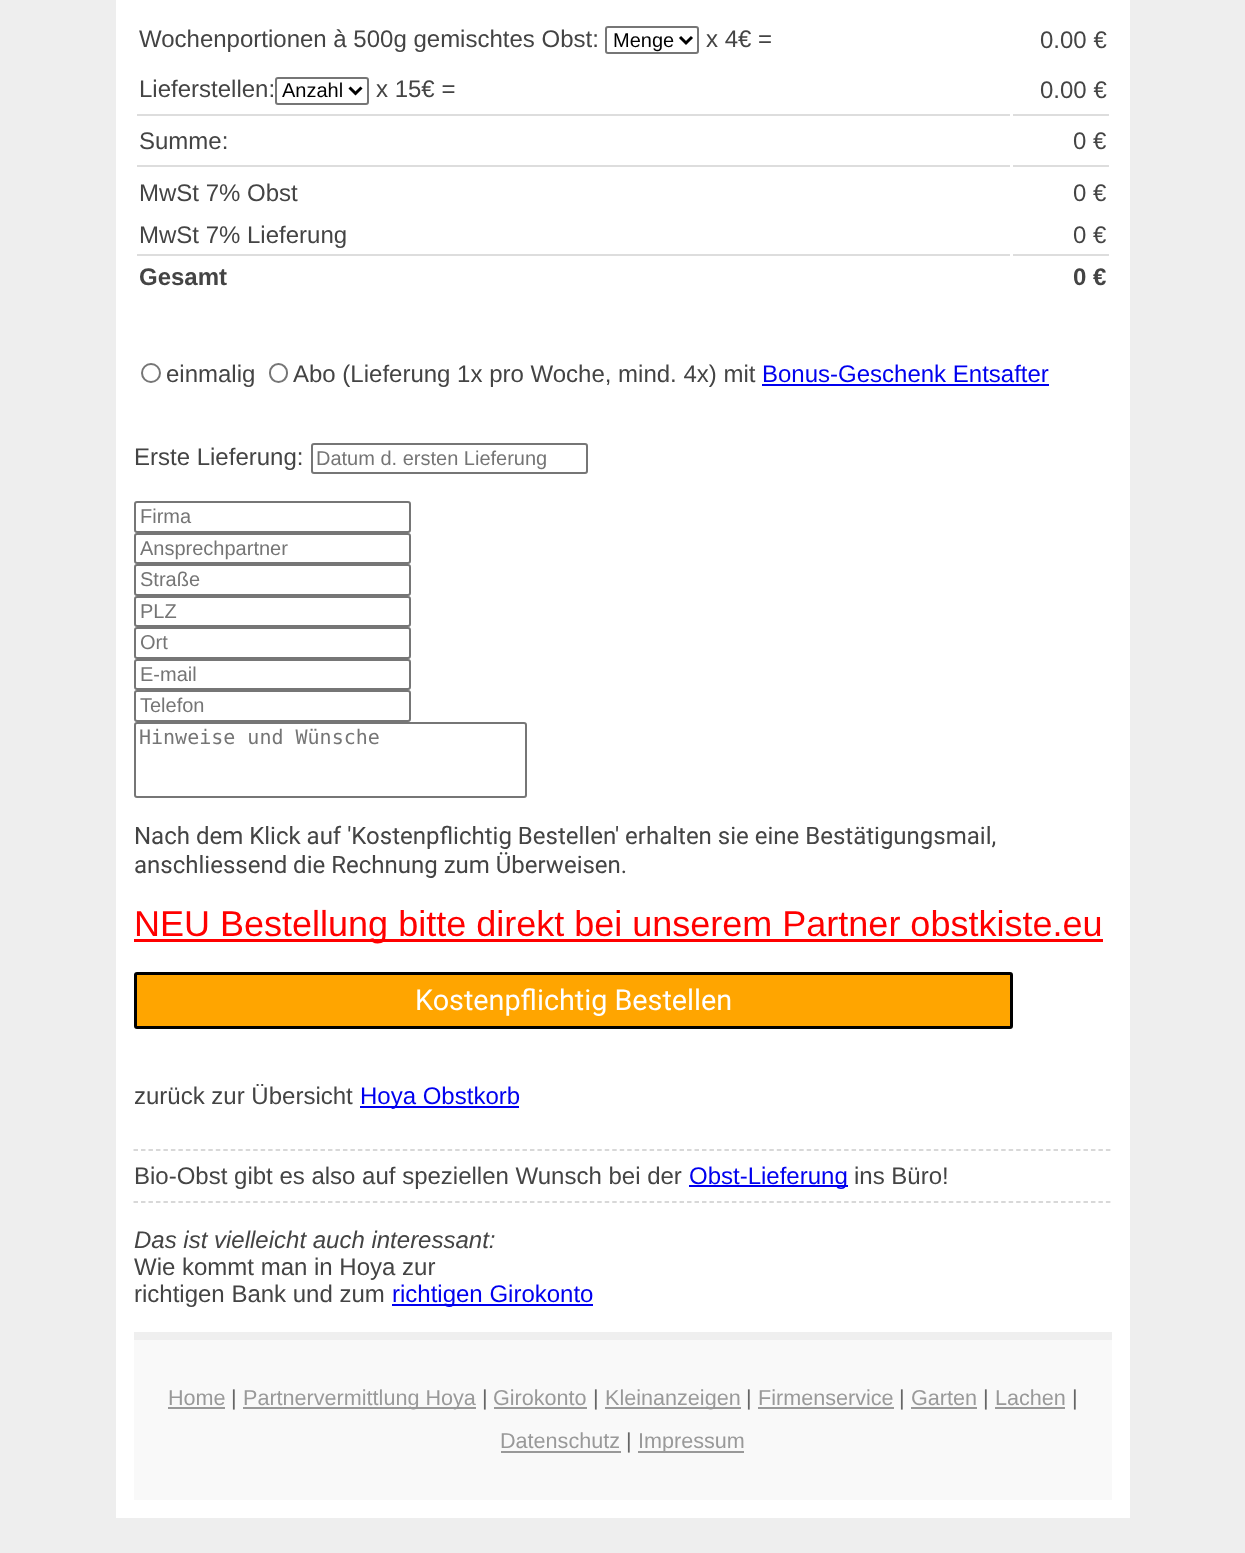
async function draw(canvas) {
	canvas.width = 1245;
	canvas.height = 1553;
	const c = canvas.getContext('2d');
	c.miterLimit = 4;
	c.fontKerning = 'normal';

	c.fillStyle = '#eee';
	c.fillRect(0, 0, 1245, 1553);
	c.fillStyle = '#fff';
	c.fillRect(116, 0, 1014, 1518);
	c.font = '24px Liberation Sans';
	c.fillStyle = '#444';
	c.fillText('Wochenportionen à 500g gemischtes Obst:', 139, 47);
	c.beginPath();
	c.roundRect(606, 27, 92, 26, 2);
	c.strokeStyle = '#767676';
	c.lineWidth = 2;
	c.stroke();
	c.beginPath();
	c.moveTo(680, 37);
	c.lineTo(686, 43);
	c.lineTo(692, 37);
	c.strokeStyle = '#000';
	c.lineWidth = 3;
	c.stroke();
	c.font = '20px Liberation Sans';
	c.fillStyle = '#000';
	c.fillText('Menge', 613, 47);
	c.font = '24px Liberation Sans';
	c.fillStyle = '#444';
	c.fillText('x 4€ =', 706, 47);
	c.fillText('0.00 €', 1040, 48);
	c.fillStyle = '#ddd';
	c.fillRect(137, 114, 873, 2);
	c.fillStyle = '#444';
	c.fillText('Lieferstellen:', 139, 97);
	c.beginPath();
	c.roundRect(276, 78, 92, 26, 2);
	c.strokeStyle = '#767676';
	c.lineWidth = 2;
	c.stroke();
	c.beginPath();
	c.moveTo(349.5, 87.5);
	c.lineTo(355.5, 93.5);
	c.lineTo(361.5, 87.5);
	c.strokeStyle = '#000';
	c.lineWidth = 3;
	c.stroke();
	c.font = '20px Liberation Sans';
	c.fillStyle = '#000';
	c.fillText('Anzahl', 282, 97);
	c.font = '24px Liberation Sans';
	c.fillStyle = '#444';
	c.fillText('x 15€ =', 376, 97);
	c.fillStyle = '#ddd';
	c.fillRect(1013, 114, 96, 2);
	c.fillStyle = '#444';
	c.fillText('0.00 €', 1040, 98);
	c.fillStyle = '#ddd';
	c.fillRect(137, 165, 873, 2);
	c.fillStyle = '#444';
	c.fillText('Summe:', 139, 149);
	c.fillStyle = '#ddd';
	c.fillRect(1013, 165, 96, 2);
	c.fillStyle = '#444';
	for (const [text, x, y] of [
		['0 €', 1073, 149],
		['MwSt 7% Obst', 139, 201],
		['0 €', 1073, 201],
		['MwSt 7% Lieferung', 139, 243],
		['0 €', 1073, 243],
	]) {
		c.fillText(text, x, y);
	}
	c.fillStyle = '#ddd';
	c.fillRect(137, 254, 873, 2);
	c.font = 'bold 24px Liberation Sans';
	c.fillStyle = '#444';
	c.fillText('Gesamt', 139, 285);
	c.fillStyle = '#ddd';
	c.fillRect(1013, 254, 96, 2);
	c.fillStyle = '#444';
	c.fillText('0 €', 1073, 285);
	c.beginPath();
	c.arc(151, 373, 9, 0, 2 * Math.PI);
	c.strokeStyle = '#767676';
	c.lineWidth = 2;
	c.stroke();
	c.font = '24px Liberation Sans';
	c.fillText('einmalig', 166, 382);
	c.beginPath();
	c.roundRect(270, 364, 17, 18, 8.5);
	c.stroke();
	c.fillText('Abo (Lieferung 1x pro Woche, mind. 4x) mit', 293, 382);
	c.fillStyle = '#00e';
	c.fillText('Bonus-Geschenk Entsafter', 762, 382);
	c.fillRect(762, 384, 287, 2);
	c.fillStyle = '#444';
	c.fillText('Erste Lieferung:', 134, 465);
	c.beginPath();
	c.roundRect(312, 444, 275, 29, 2);
	c.stroke();
	c.font = '20px Liberation Sans';
	c.fillStyle = '#757575';
	c.fillText('Datum d. ersten Lieferung', 316, 465);
	c.beginPath();
	c.roundRect(135, 502, 275, 30, 2);
	c.stroke();
	c.fillText('Firma', 140, 523);
	c.beginPath();
	c.roundRect(135, 534, 275, 29, 2);
	c.stroke();
	c.fillText('Ansprechpartner', 140, 555);
	c.beginPath();
	c.roundRect(135, 565, 275, 30, 2);
	c.stroke();
	c.fillText('Straße', 140, 586);
	c.beginPath();
	c.roundRect(135, 597, 275, 29, 2);
	c.stroke();
	c.fillText('PLZ', 140, 618);
	c.beginPath();
	c.roundRect(135, 628, 275, 30, 2);
	c.stroke();
	c.fillText('Ort', 140, 649);
	c.beginPath();
	c.roundRect(135, 660, 275, 29, 2);
	c.stroke();
	c.fillText('E-mail', 140, 681);
	c.beginPath();
	c.roundRect(135, 691, 275, 30, 2);
	c.stroke();
	c.fillText('Telefon', 140, 712);
	c.beginPath();
	c.roundRect(135, 723, 391, 74, 2);
	c.stroke();
	c.font = '20px DejaVu Sans Mono';
	c.fillText('Hinweise und Wünsche', 139, 744);
	c.font = '24px Roboto';
	c.fillStyle = '#444';
	c.fillText('Nach dem Klick auf \'Kostenpflichtig Bestellen\' erhalten sie eine Bestätigungsmail,', 134, 844);
	c.fillText('anschliessend die Rechnung zum Überweisen.', 134, 873);
	c.fillStyle = '#f00';
	c.fillRect(134, 939, 969, 3);
	c.font = '36px Liberation Sans';
	c.fillText('NEU Bestellung bitte direkt bei unserem Partner obstkiste.eu', 134, 936);
	c.fillStyle = '#ffa500';
	c.beginPath();
	c.roundRect(135.5, 973.5, 876, 54, 1.5);
	c.fill();
	c.strokeStyle = '#000';
	c.lineWidth = 3;
	c.stroke();
	c.font = '28.75px Roboto';
	c.fillStyle = '#fff';
	c.fillText('Kostenpflichtig Bestellen', 415, 1010);
	c.font = '24px Liberation Sans';
	c.fillStyle = '#444';
	c.fillText('zurück zur Übersicht', 134, 1104);
	c.fillStyle = '#00e';
	c.fillRect(360, 1106, 159, 2);
	c.fillText('Hoya Obstkorb', 360, 1104);
	c.beginPath();
	c.moveTo(133.5, 1150);
	c.lineTo(1111.5, 1150);
	c.strokeStyle = '#ccc';
	c.lineWidth = 1.5;
	c.setLineDash([4.5, 2.98]);
	c.stroke();
	c.fillStyle = '#444';
	c.fillText('Bio-Obst gibt es also auf speziellen Wunsch bei der', 134, 1184);
	c.fillStyle = '#00e';
	c.fillRect(689, 1185, 159, 2);
	c.fillText('Obst-Lieferung', 689, 1184);
	c.fillStyle = '#444';
	c.fillText('ins Büro!', 854, 1184);
	c.beginPath();
	c.moveTo(133.5, 1202);
	c.lineTo(1111.5, 1202);
	c.stroke();
	c.font = 'italic 24px Liberation Sans';
	c.fillText('Das ist vielleicht auch interessant:', 134, 1248);
	c.font = '24px Liberation Sans';
	c.fillText('Wie kommt man in Hoya zur', 134, 1275);
	c.fillText('richtigen Bank und zum', 134, 1302);
	c.fillStyle = '#00e';
	c.fillRect(392, 1304, 201, 2);
	c.fillText('richtigen Girokonto', 392, 1302);
	c.fillStyle = '#f9f9f9';
	c.fillRect(134, 1340, 978, 160);
	c.fillStyle = '#efefef';
	c.fillRect(134, 1332, 978, 8);
	c.font = '21.6px Liberation Sans';
	c.fillStyle = '#999';
	c.fillText('Home', 168, 1405);
	c.fillRect(168, 1407, 57, 2);
	c.fillStyle = '#666';
	c.fillText('|', 231, 1405);
	c.fillStyle = '#999';
	c.fillRect(243, 1407, 233, 2);
	c.fillText('Partnervermittlung Hoya', 243, 1405);
	c.fillStyle = '#666';
	c.fillText('|', 482, 1405);
	c.fillStyle = '#999';
	c.fillText('Girokonto', 493, 1405);
	c.fillRect(494, 1407, 93, 2);
	c.fillStyle = '#666';
	c.fillText('|', 593, 1405);
	c.fillStyle = '#999';
	c.fillRect(605, 1407, 136, 2);
	c.fillText('Kleinanzeigen', 605, 1405);
	c.fillStyle = '#666';
	c.fillText('|', 746, 1405);
	c.fillStyle = '#999';
	c.fillText('Firmenservice', 758, 1405);
	c.fillRect(758, 1407, 136, 2);
	c.fillStyle = '#666';
	c.fillText('|', 899, 1405);
	c.fillStyle = '#999';
	c.fillText('Garten', 911, 1405);
	c.fillRect(911, 1407, 66, 2);
	c.fillStyle = '#666';
	c.fillText('|', 983, 1405);
	c.fillStyle = '#999';
	c.fillText('Lachen', 995, 1405);
	c.fillRect(995, 1407, 70, 2);
	c.fillStyle = '#666';
	c.fillText('|', 1072, 1405);
	c.fillStyle = '#999';
	c.fillText('Datenschutz', 500, 1448);
	c.fillRect(501, 1451, 120, 2);
	c.fillStyle = '#666';
	c.fillText('|', 626, 1448);
	c.fillStyle = '#999';
	c.fillRect(638, 1451, 106, 2);
	c.fillText('Impressum', 638, 1448);
}

draw(document.querySelector('canvas'));
